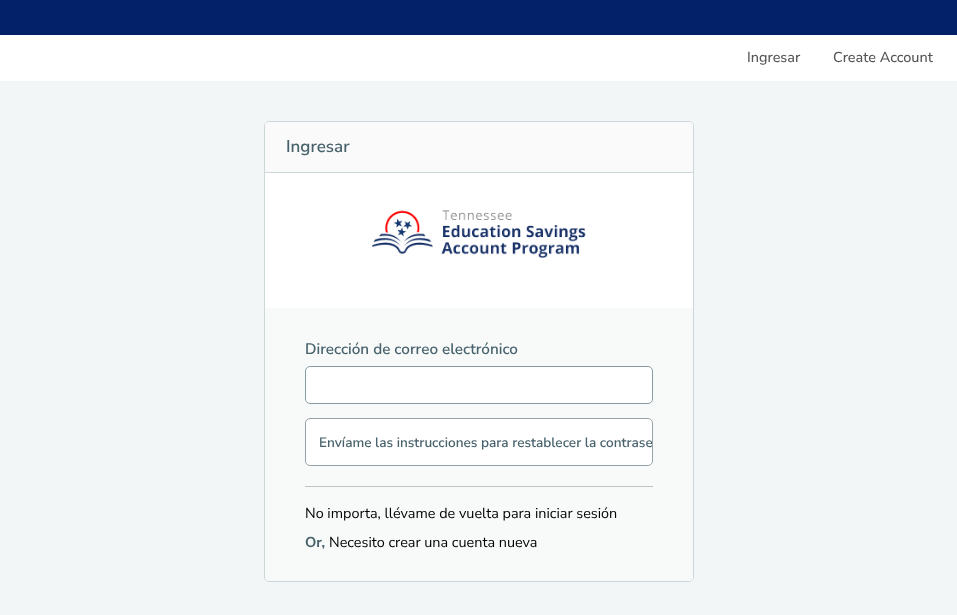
async function draw(canvas) {
	canvas.width = 957;
	canvas.height = 615;
	const c = canvas.getContext('2d');
	c.miterLimit = 4;
	c.fontKerning = 'normal';
	async function loadImage(src) {
		const img = new Image();
		img.src = src;
		await img.decode();
		return img;
	}

	c.fillStyle = '#f3f6f7';
	c.fillRect(0, 0, 957, 615);
	c.fillStyle = '#022169';
	c.fillRect(0, 0, 957, 35);
	c.fillStyle = '#fff';
	c.fillRect(0, 35, 957, 46);
	c.font = '500 14.4px Nunito Sans';
	c.fillStyle = '#555';
	c.fillText('Ingresar', 747, 62);
	c.fillText('Create Account', 833, 62);
	c.beginPath();
	c.roundRect(264.5, 121.5, 429, 460, 4.5);
	c.strokeStyle = '#cdd7da';
	c.stroke();
	c.fillStyle = '#fafafa';
	c.beginPath();
	c.roundRect(265, 122, 428, 51, [4, 4, 0, 0]);
	c.fill();
	c.fillStyle = '#cdd7da';
	c.fillRect(265, 172, 428, 1);
	c.font = '600 17px Nunito Sans';
	c.fillStyle = '#48626c';
	c.fillText('Ingresar', 286, 152);
	c.fillStyle = '#fff';
	c.fillRect(265, 173, 428, 135);
	c.drawImage(await loadImage('img1.png'), 371, 210, 215, 48);
	c.fillStyle = '#f8fafa';
	c.beginPath();
	c.roundRect(265, 308, 428, 273, [0, 0, 4, 4]);
	c.fill();
	c.font = '600 15.25px Nunito Sans';
	c.fillStyle = '#48626c';
	c.fillText('Dirección de correo electrónico', 305, 354);
	c.fillStyle = '#fff';
	c.beginPath();
	c.roundRect(305.5, 366.5, 347, 37, 4.5);
	c.fill();
	c.strokeStyle = '#879ba3';
	c.stroke();
	c.beginPath();
	c.roundRect(305.5, 418.5, 347, 47, 4.5);
	c.fill();
	c.strokeStyle = '#96a4a8';
	c.stroke();
	c.save();
	c.beginPath();
	c.roundRect(306, 419, 346, 46, 4);
	c.clip();
	c.font = '600 13.6px Nunito Sans';
	c.fillStyle = '#48626c';
	c.fillText('Envíame las instrucciones para restablecer la contrase', 319, 447);
	c.restore();
	c.fillStyle = '#bcc4c8';
	c.fillRect(305, 486, 348, 1);
	c.font = '14.4px Nunito Sans';
	c.fillStyle = '#000';
	c.fillText('No importa, llévame de vuelta para iniciar sesión', 305, 518);
	c.font = 'bold 14.4px Nunito Sans';
	c.fillStyle = '#48626c';
	c.fillText('Or,', 305, 547);
	c.font = '14.4px Nunito Sans';
	c.fillStyle = '#000';
	c.fillText('Necesito crear una cuenta nueva', 329, 547);
}

draw(document.querySelector('canvas'));
